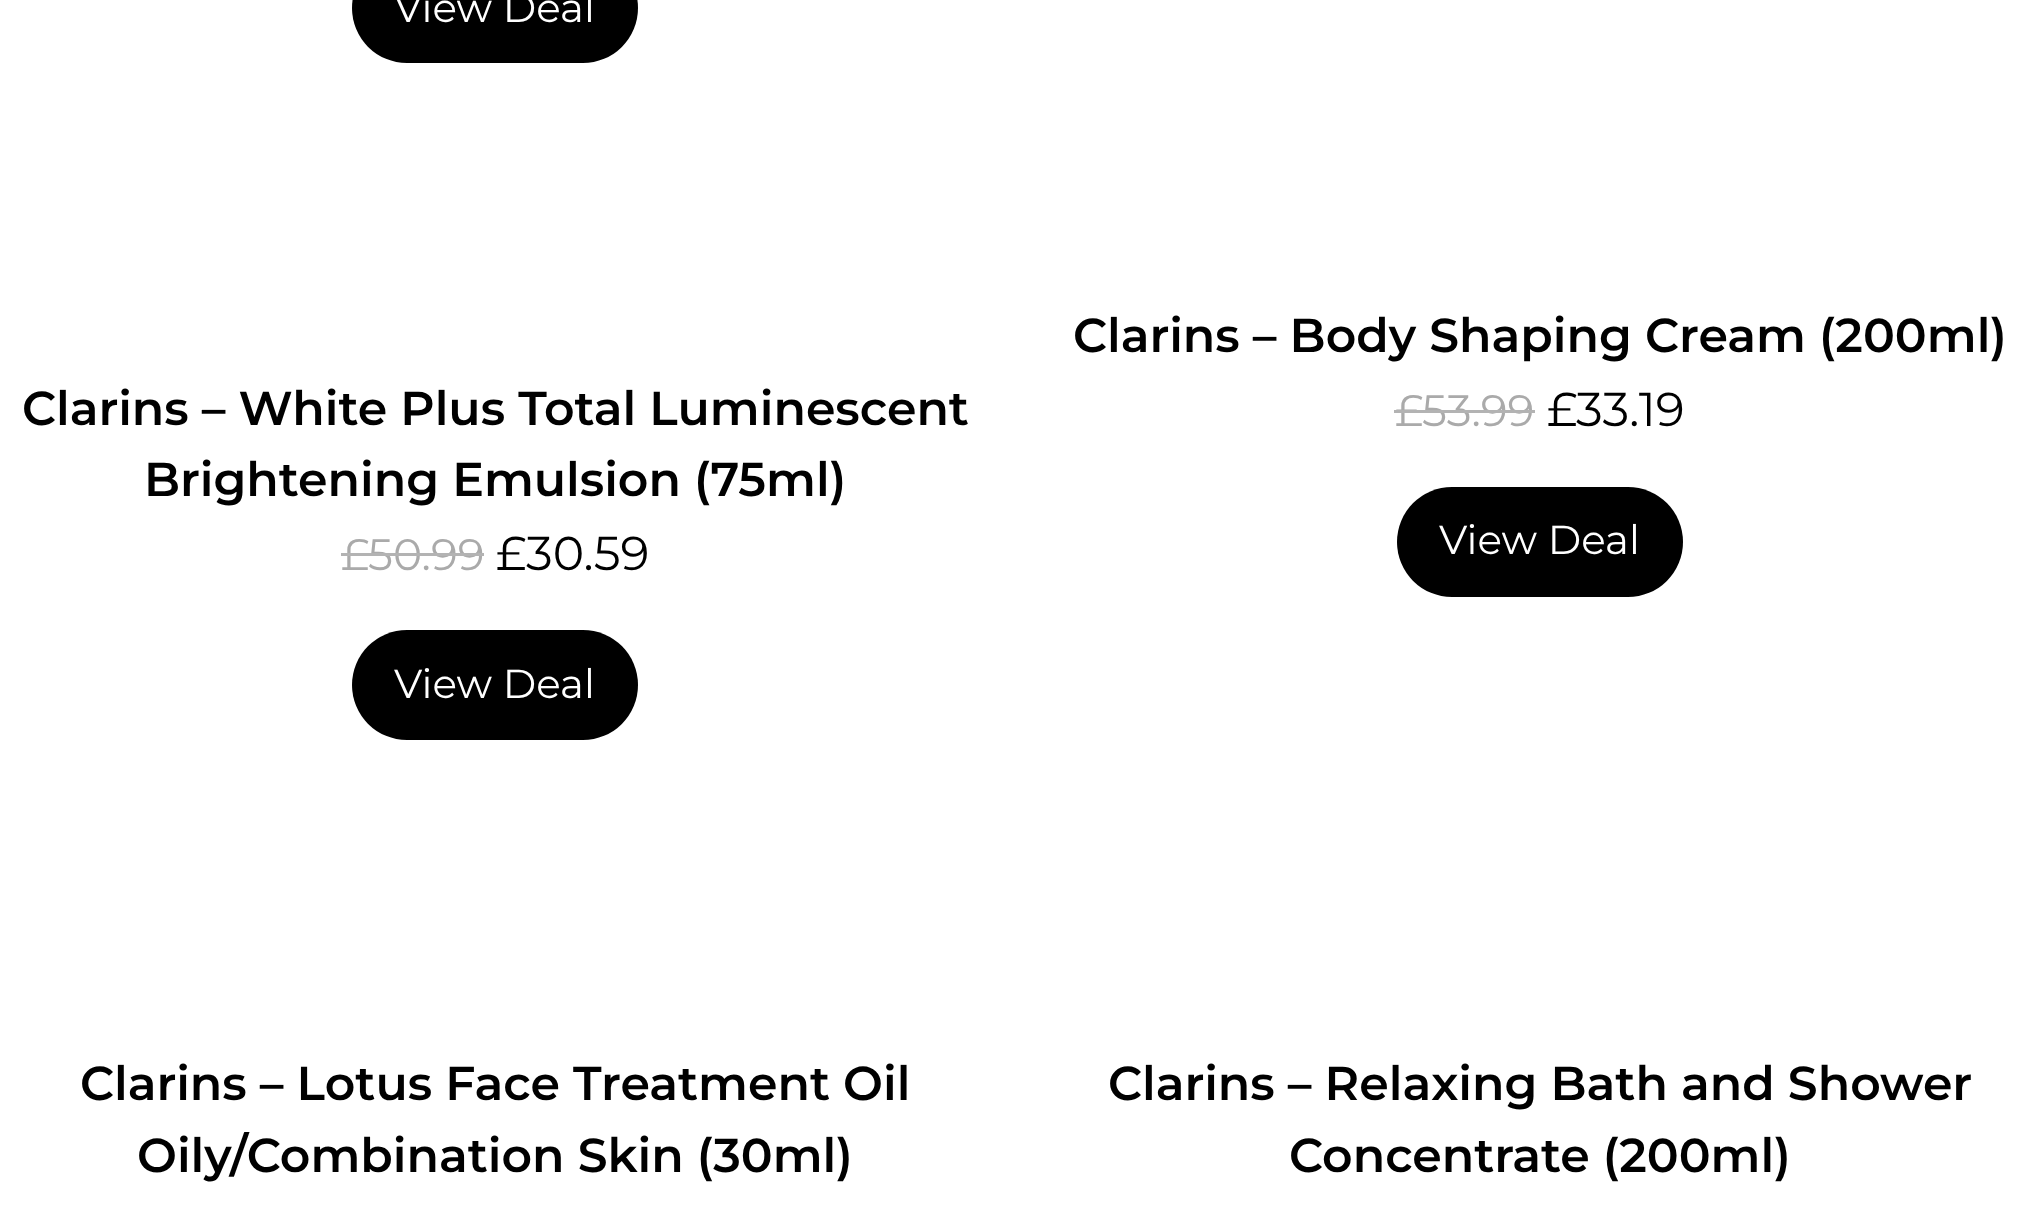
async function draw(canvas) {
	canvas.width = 2033;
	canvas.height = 1229;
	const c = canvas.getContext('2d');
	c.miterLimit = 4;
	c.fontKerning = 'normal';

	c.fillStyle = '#fff';
	c.fillRect(0, 0, 2033, 1229);
	c.fillStyle = '#000';
	c.beginPath();
	c.roundRect(352, -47, 286, 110, 55);
	c.fill();
	c.font = '40.5px Montserrat';
	c.fillStyle = '#fff';
	c.fillText('View Deal', 394, 22);
	c.font = '600 47.4px Montserrat';
	c.fillStyle = '#000';
	c.fillText('Clarins – White Plus Total Luminescent', 22, 425);
	c.fillText('Brightening Emulsion (75ml)', 144, 496);
	c.font = '44px Montserrat';
	c.fillStyle = '#aaa';
	c.fillText('£', 341, 570);
	c.fillStyle = '#b3b3b3';
	c.fillRect(341, 553, 28, 3);
	c.fillStyle = '#aaa';
	c.fillText('50.99', 368, 570);
	c.fillStyle = '#b3b3b3';
	c.fillRect(369, 553, 115, 3);
	c.font = '47.4px Montserrat';
	c.fillStyle = '#000';
	c.fillText('£', 496, 570);
	c.fillText('30.59', 526, 570);
	c.beginPath();
	c.roundRect(352, 630, 286, 110, 55);
	c.fill();
	c.font = '40.5px Montserrat';
	c.fillStyle = '#fff';
	c.fillText('View Deal', 394, 698);
	c.font = '600 47.4px Montserrat';
	c.fillStyle = '#000';
	c.fillText('Clarins – Body Shaping Cream (200ml)', 1073, 352);
	c.font = '44px Montserrat';
	c.fillStyle = '#aaa';
	c.fillText('£', 1395, 426);
	c.fillStyle = '#b3b3b3';
	c.fillRect(1394, 410, 28, 3);
	c.fillStyle = '#aaa';
	c.fillText('53.99', 1422, 426);
	c.fillStyle = '#b3b3b3';
	c.fillRect(1422, 410, 113, 3);
	c.font = '47.4px Montserrat';
	c.fillStyle = '#000';
	c.fillText('£', 1547, 426);
	c.fillText('33.19', 1576, 426);
	c.beginPath();
	c.roundRect(1397, 487, 286, 110, 55);
	c.fill();
	c.font = '40.5px Montserrat';
	c.fillStyle = '#fff';
	c.fillText('View Deal', 1439, 554);
	c.font = '600 47.4px Montserrat';
	c.fillStyle = '#000';
	for (const [text, x, y] of [
		['Clarins – Lotus Face Treatment Oil', 80, 1100],
		['Oily/Combination Skin (30ml)', 137, 1172],
		['Clarins – Relaxing Bath and Shower', 1108, 1100],
		['Concentrate (200ml)', 1289, 1172],
	]) {
		c.fillText(text, x, y);
	}
}

draw(document.querySelector('canvas'));
